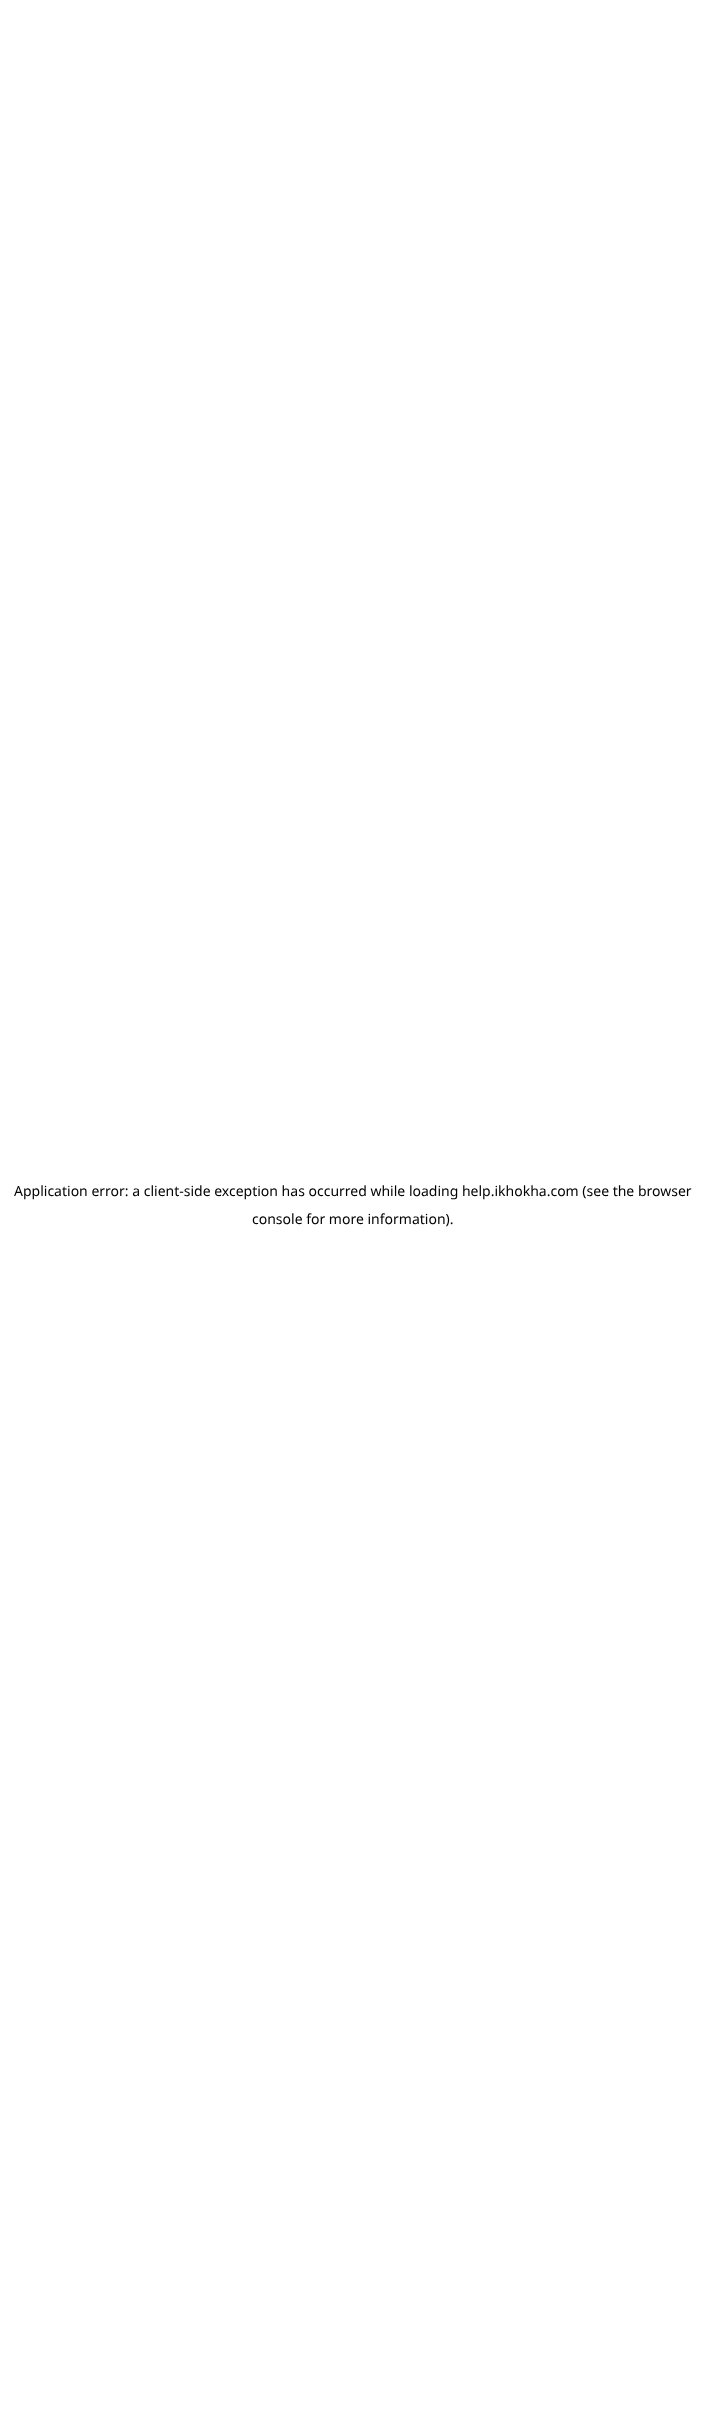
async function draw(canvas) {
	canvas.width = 706;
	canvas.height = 2410;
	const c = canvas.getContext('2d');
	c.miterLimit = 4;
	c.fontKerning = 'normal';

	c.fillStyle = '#fff';
	c.fillRect(0, 0, 706, 2410);
	c.font = '14px Noto Sans';
	c.fillStyle = '#000';
	c.fillText('Application error: a client-side exception has occurred while loading help.ikhokha.com (see the browser', 14, 1196);
	c.fillText('console for more information).', 252, 1224);
}

draw(document.querySelector('canvas'));
